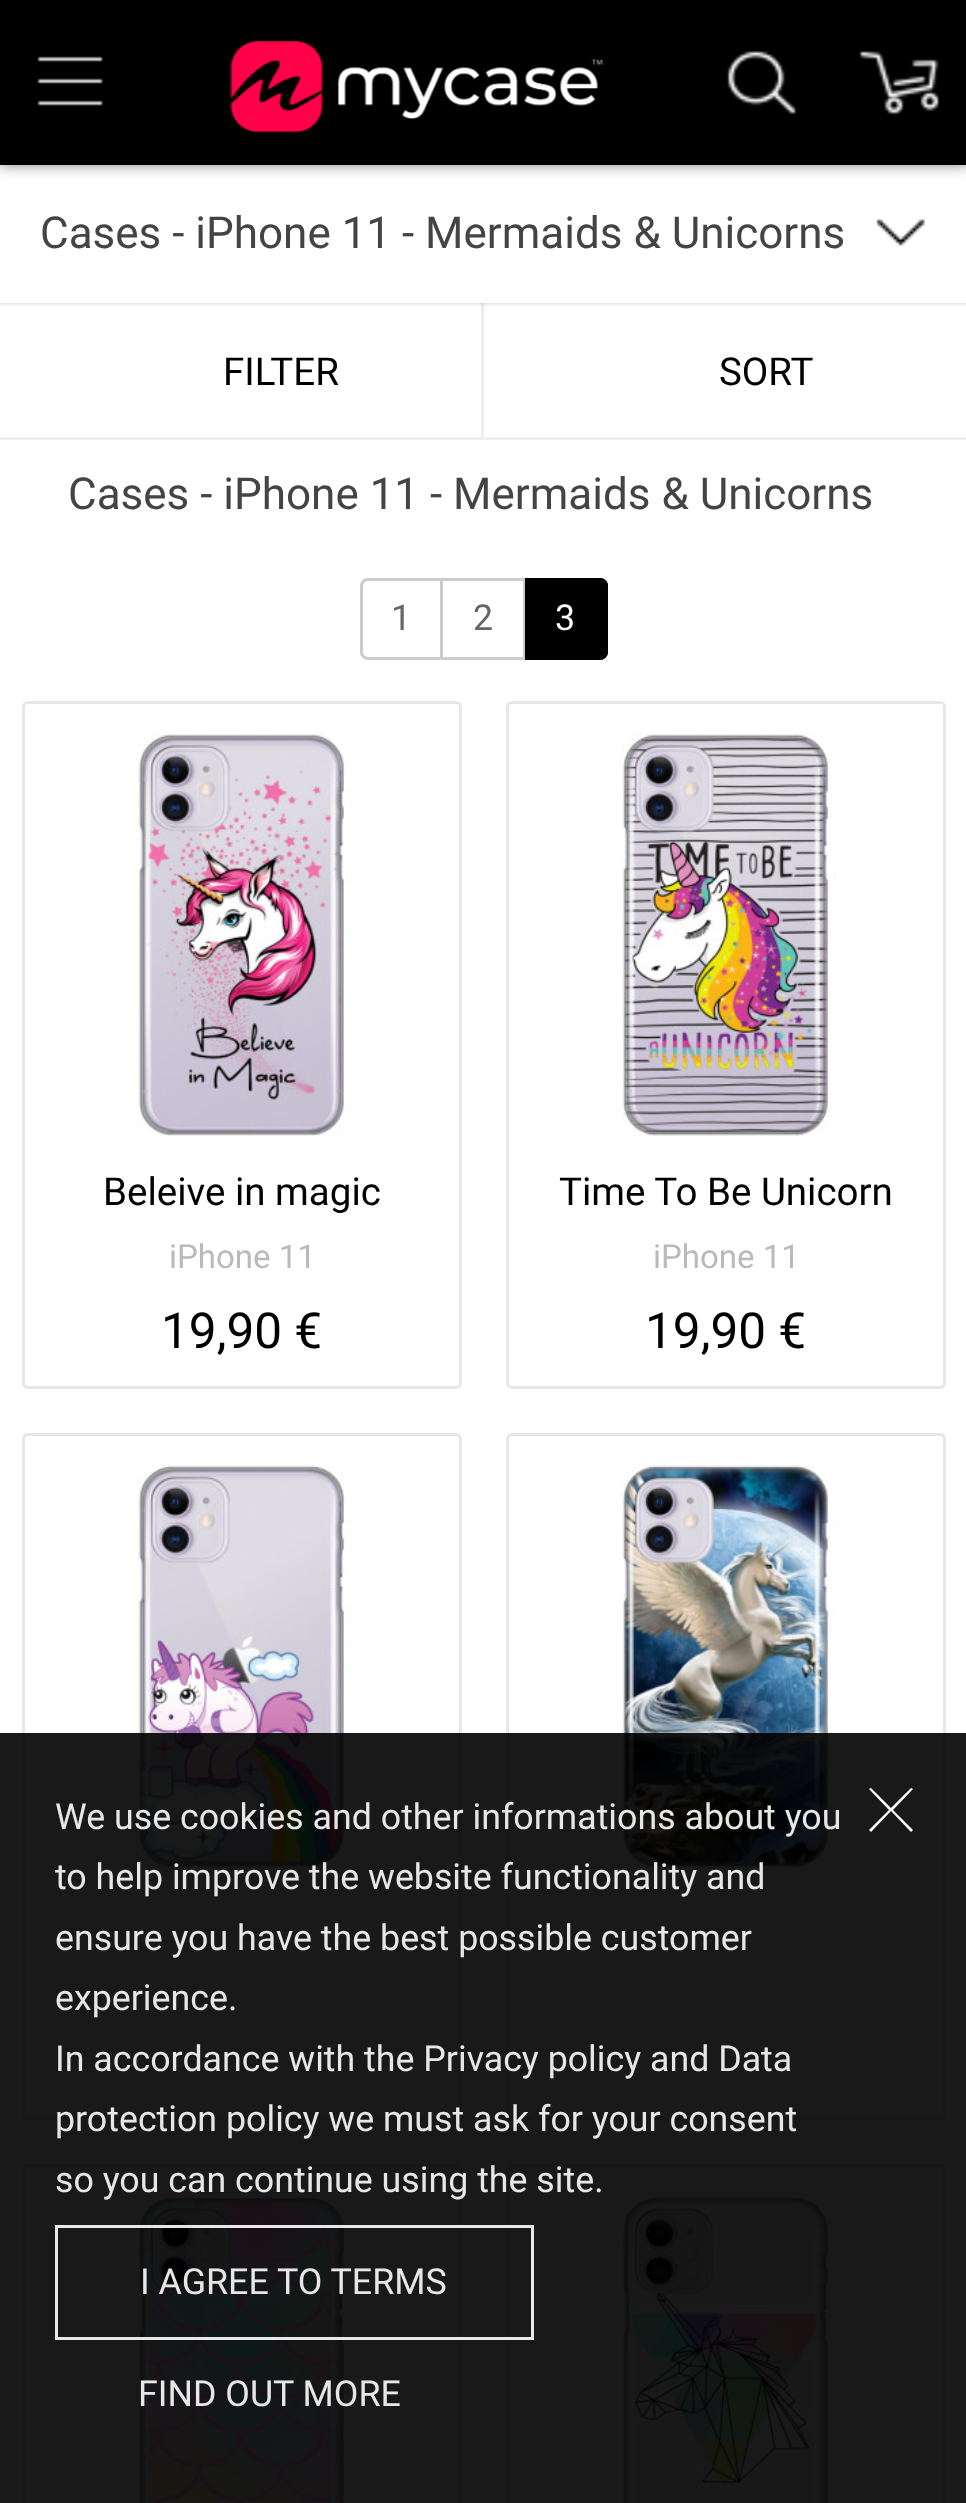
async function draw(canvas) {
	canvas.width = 966;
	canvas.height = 2503;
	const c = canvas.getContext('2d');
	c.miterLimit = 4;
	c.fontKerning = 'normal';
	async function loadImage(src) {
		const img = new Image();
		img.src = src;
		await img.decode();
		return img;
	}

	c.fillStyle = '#fff';
	c.fillRect(0, 0, 966, 2503);
	c.fillStyle = '#eee';
	c.fillRect(0, 437, 966, 3);
	c.fillRect(481, 303, 3, 137);
	c.fillStyle = '#0000001a';
	c.filter = 'blur(1.5px)';
	c.beginPath();
	c.rect(0, 168, 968, 137);
	c.fill();
	c.filter = 'none';
	c.fillStyle = '#fff';
	c.fillRect(0, 166, 966, 137);
	c.fillStyle = '#00000080';
	c.filter = 'blur(7px)';
	c.beginPath();
	c.rect(0, 0, 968, 165);
	c.fill();
	c.filter = 'none';
	c.fillStyle = '#000';
	c.fillRect(0, 0, 966, 165);
	c.drawImage(await loadImage('img1.png'), 37, 56, 67, 50);
	c.drawImage(await loadImage('img2.png'), 230, 41, 373, 92);
	c.drawImage(await loadImage('img3.png'), 727, 51, 70, 64);
	c.drawImage(await loadImage('img4.png'), 859, 51, 81, 64);
	c.font = '44px Roboto';
	c.fillStyle = '#444';
	c.fillText('Cases - iPhone 11 - Mermaids & Unicorns', 40, 248);
	c.drawImage(await loadImage('img5.png'), 876, 219, 49, 27);
	c.font = '38.5px Roboto';
	c.fillStyle = '#000';
	c.fillText('FILTER', 223, 385);
	c.fillText('SORT', 719, 385);
	c.font = '44px Roboto';
	c.fillStyle = '#444';
	c.fillText('Cases - iPhone 11 - Mermaids & Unicorns', 68, 509);
	c.beginPath();
	c.roundRect(361.5, 579.5, 80, 79, [6.5, 0, 0, 6.5]);
	c.strokeStyle = '#ccc';
	c.lineWidth = 3;
	c.stroke();
	c.font = '35.75px Roboto';
	c.fillStyle = '#666';
	c.fillText('1', 391, 630);
	for (const [x, y, w, h, color] of [
		[443, 578, 82, 3, '#ccc'],
		[523, 578, 2, 82, '#ccc'],
		[443, 657, 82, 3, '#ccc'],
	]) {
		c.fillStyle = color;
		c.fillRect(x, y, w, h);
	}
	c.fillStyle = '#666';
	c.fillText('2', 473, 630);
	c.fillStyle = '#000';
	c.beginPath();
	c.roundRect(525, 578, 83, 82, [0, 8, 8, 0]);
	c.fill();
	c.beginPath();
	c.moveTo(525, 578);
	c.lineTo(600, 578);
	c.bezierCurveTo(604, 578, 608, 581, 608, 586);
	c.lineTo(608, 652);
	c.bezierCurveTo(608, 656, 604, 660, 600, 660);
	c.lineTo(525, 660);
	c.closePath();
	c.moveTo(525, 580);
	c.lineTo(600, 580);
	c.bezierCurveTo(603, 580, 605, 583, 605, 586);
	c.lineTo(605, 652);
	c.bezierCurveTo(605, 655, 603, 657, 600, 657);
	c.lineTo(525, 657);
	c.closePath();
	c.fill('evenodd');
	c.fillStyle = '#fff';
	c.fillText('3', 555, 630);
	c.beginPath();
	c.roundRect(23.5, 702.5, 437, 685, 4.5);
	c.strokeStyle = '#e7e7e7';
	c.stroke();
	c.drawImage(await loadImage('img6.png'), 138, 733, 214, 403);
	c.font = '38.5px Roboto';
	c.fillStyle = '#000';
	c.fillText('Beleive in magic', 103, 1205);
	c.font = '33px Roboto';
	c.fillStyle = '#bababa';
	c.fillText('iPhone 11', 169, 1268);
	c.font = '49.5px Roboto';
	c.fillStyle = '#000';
	c.fillText('19,90 €', 161, 1348);
	c.beginPath();
	c.roundRect(507.5, 702.5, 437, 685, 4.5);
	c.stroke();
	c.drawImage(await loadImage('img7.png'), 620, 733, 216, 403);
	c.font = '38.5px Roboto';
	c.fillText('Time To Be Unicorn', 559, 1205);
	c.font = '33px Roboto';
	c.fillStyle = '#bababa';
	c.fillText('iPhone 11', 653, 1268);
	c.font = '49.5px Roboto';
	c.fillStyle = '#000';
	c.fillText('19,90 €', 645, 1348);
	c.beginPath();
	c.roundRect(23.5, 1434.5, 437, 684, 4.5);
	c.stroke();
	c.drawImage(await loadImage('img8.png'), 136, 1464, 216, 406);
	c.beginPath();
	c.roundRect(507.5, 1434.5, 437, 684, 4.5);
	c.stroke();
	c.drawImage(await loadImage('img9.png'), 620, 1463, 216, 407);
	c.beginPath();
	c.roundRect(23.5, 2165.5, 437, 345, 4.5);
	c.stroke();
	c.drawImage(await loadImage('img10.png'), 136, 2194, 216, 309);
	c.beginPath();
	c.roundRect(507.5, 2165.5, 437, 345, 4.5);
	c.stroke();
	c.drawImage(await loadImage('img11.png'), 621, 2196, 215, 307);
	c.fillStyle = '#000000e6';
	c.fillRect(0, 1733, 966, 770);
	c.font = '35.75px Roboto';
	c.fillStyle = '#e7e7e7';
	for (const [text, x, y] of [
		['We use cookies and other informations about you', 55, 1829],
		['to help improve the website functionality and', 55, 1889],
		['ensure you have the best possible customer', 55, 1950],
		['experience.', 55, 2010],
		['In accordance with the Privacy policy and Data', 55, 2071],
		['protection policy we must ask for your consent', 55, 2131],
		['so you can continue using the site.', 55, 2192],
	]) {
		c.fillText(text, x, y);
	}
	c.strokeStyle = '#ffffffe6';
	c.strokeRect(56.5, 2226.5, 476, 112);
	c.fillText('I AGREE TO TERMS', 140, 2294);
	c.fillText('FIND OUT MORE', 138, 2406);
	c.fillStyle = '#fff';
	c.beginPath();
	c.moveTo(913, 1789);
	c.lineTo(911, 1788);
	c.lineTo(891, 1808);
	c.lineTo(871, 1788);
	c.lineTo(869, 1789);
	c.lineTo(889, 1810);
	c.lineTo(869, 1830);
	c.lineTo(871, 1832);
	c.lineTo(891, 1811);
	c.lineTo(911, 1832);
	c.lineTo(913, 1830);
	c.lineTo(893, 1810);
	c.closePath();
	c.fill('evenodd');
}

draw(document.querySelector('canvas'));
